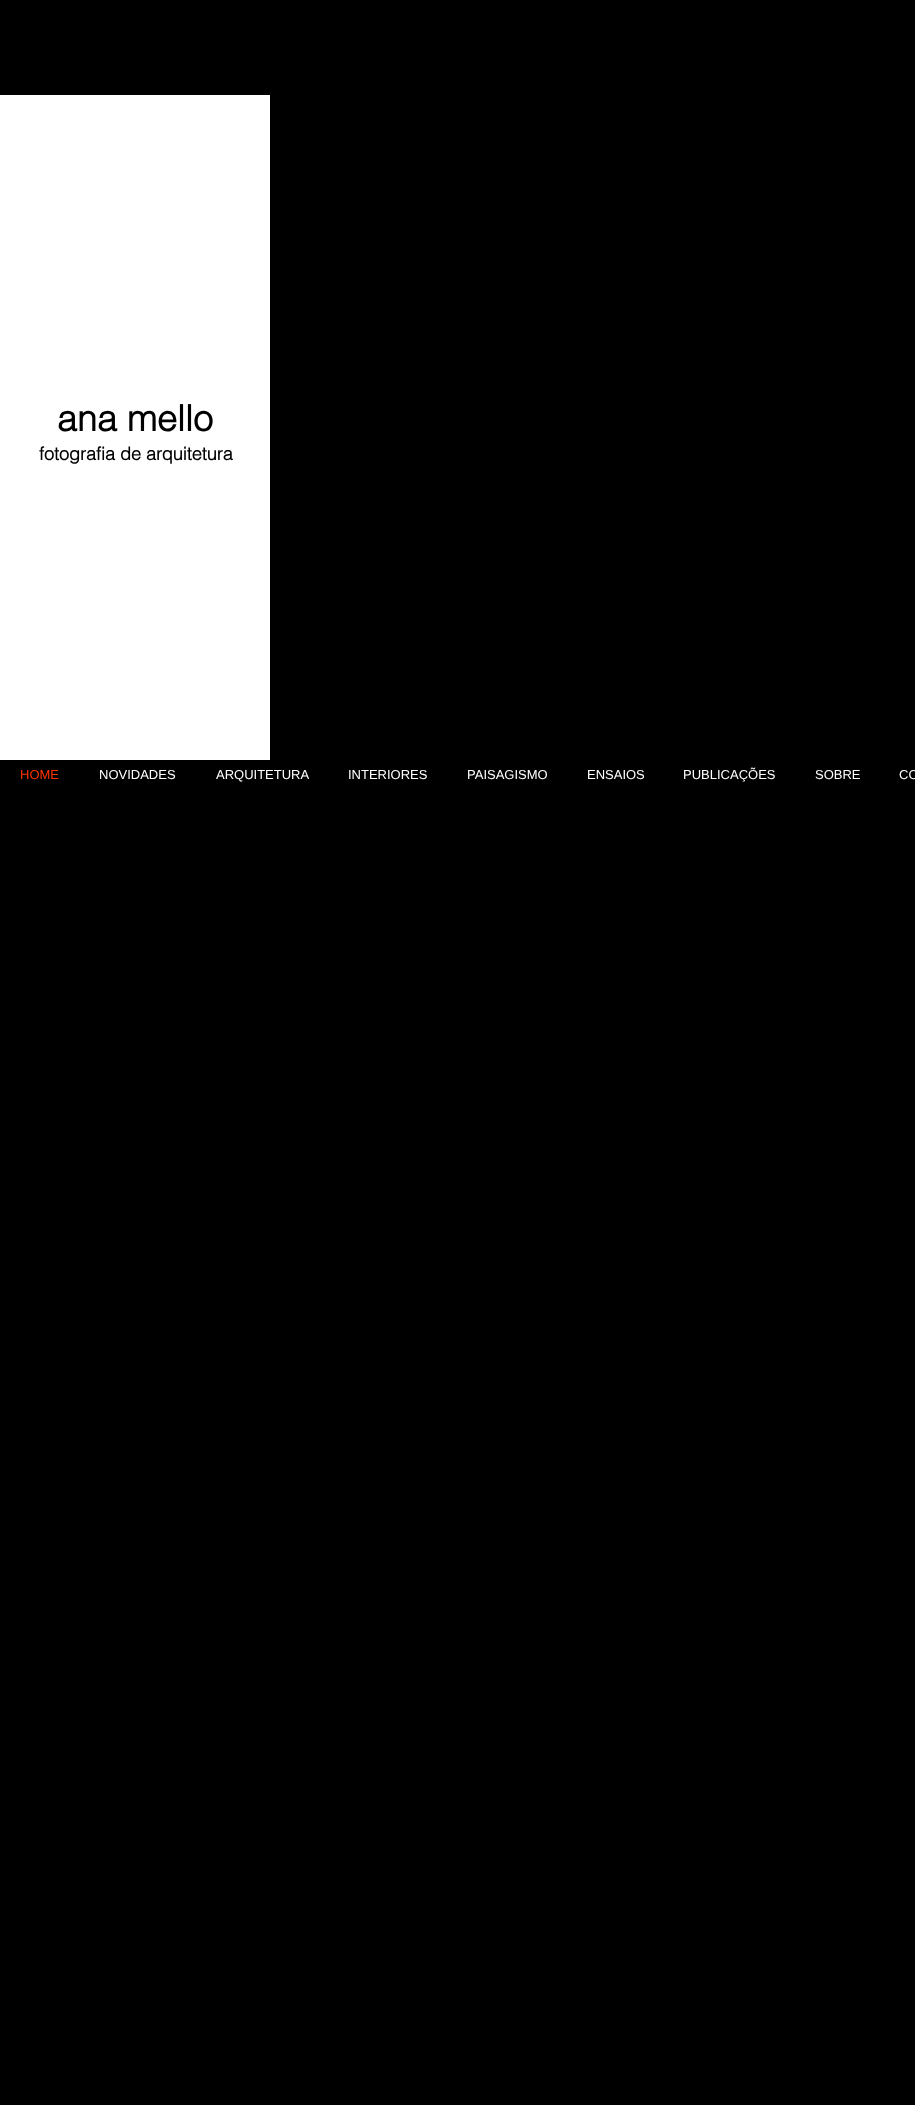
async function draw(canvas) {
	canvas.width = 915;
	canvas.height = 2105;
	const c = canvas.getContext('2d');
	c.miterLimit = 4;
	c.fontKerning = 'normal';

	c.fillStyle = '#000';
	c.fillRect(0, 0, 915, 2105);
	c.fillStyle = '#fff';
	c.fillRect(0, 95, 270, 665);
	c.font = 'bold 36px helvetica';
	c.fillStyle = '#000';
	c.fillText('ana mello', 57, 431);
	c.font = 'bold 18px helvetica';
	c.fillText('fotografia de arquitetura', 39, 460);
	c.font = '13px Liberation Sans';
	c.fillStyle = '#f30';
	c.fillText('HOME', 20, 779);
	c.fillStyle = '#fff';
	for (const [text, x, y] of [
		['NOVIDADES', 99, 779],
		['ARQUITETURA', 216, 779],
		['INTERIORES', 348, 779],
		['PAISAGISMO', 467, 779],
		['ENSAIOS', 587, 779],
		['PUBLICAÇÕES', 683, 779],
		['SOBRE', 815, 779],
		['CO', 899, 779],
	]) {
		c.fillText(text, x, y);
	}
}

draw(document.querySelector('canvas'));
